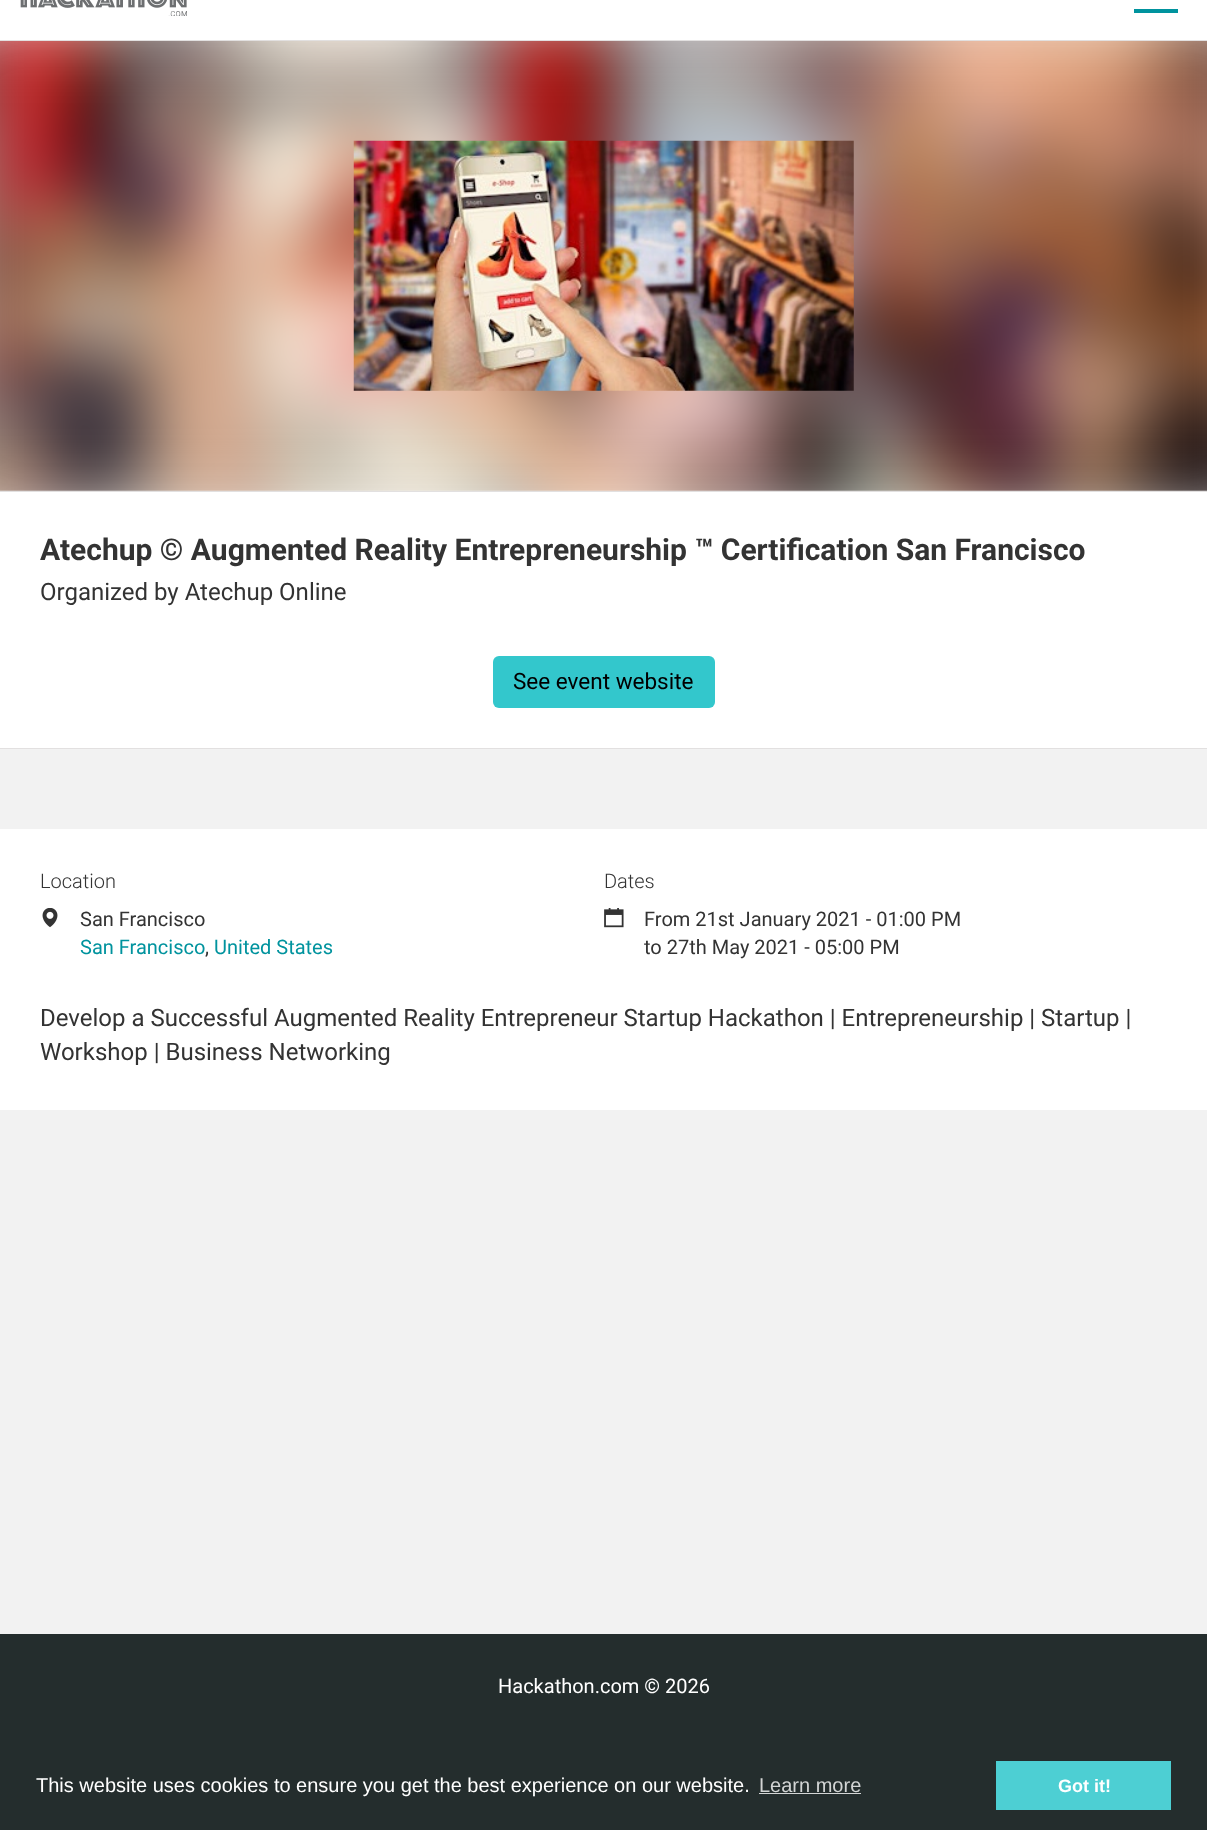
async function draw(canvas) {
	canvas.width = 1207;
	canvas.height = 1830;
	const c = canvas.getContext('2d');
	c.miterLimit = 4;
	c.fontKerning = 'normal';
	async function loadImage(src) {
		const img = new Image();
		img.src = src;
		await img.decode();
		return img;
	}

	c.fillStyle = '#f2f2f2';
	c.fillRect(0, 0, 1207, 1830);
	c.fillStyle = '#fff';
	c.fillRect(0, 0, 1207, 40);
	c.fillStyle = '#e2e0e0';
	c.fillRect(0, 40, 1207, 1);
	c.drawImage(await loadImage('img1.png'), 20, 0, 167, 16);
	c.fillStyle = '#00939e';
	c.fillRect(1134, 9, 44, 4);
	c.drawImage(await loadImage('img2.png'), 0, 41, 1207, 450);
	c.drawImage(await loadImage('img3.png'), 353, 140, 501, 251);
	for (const [x, y, w, h, color] of [
		[0, 492, 1207, 256, '#fff'],
		[0, 491, 1207, 1, '#e2e0e0'],
		[0, 748, 1207, 1, '#e2e0e0'],
	]) {
		c.fillStyle = color;
		c.fillRect(x, y, w, h);
	}
	c.font = 'bold 30px Roboto';
	c.fillStyle = '#333';
	c.fillText('Atechup © Augmented Reality Entrepreneurship ™ Certification San Francisco', 40, 560);
	c.font = '24px Roboto';
	c.fillText('Organized by Atechup Online', 40, 600);
	c.fillStyle = '#33c7cc';
	c.beginPath();
	c.roundRect(493, 656, 222, 52, 6);
	c.fill();
	c.font = '22.5px Roboto';
	c.fillStyle = '#000';
	c.fillText('See event website', 513, 689);
	c.fillStyle = '#fff';
	c.fillRect(0, 829, 1207, 281);
	c.font = '300 20px Roboto';
	c.fillStyle = '#333';
	c.fillText('Location', 40, 888);
	c.drawImage(await loadImage('img4.png'), 42, 908, 16, 20);
	c.font = '20px Roboto';
	c.fillText('San Francisco', 80, 926);
	c.fillStyle = '#00939e';
	c.fillText('San Francisco', 80, 954);
	c.fillStyle = '#333';
	c.fillText(',', 205, 954);
	c.fillStyle = '#00939e';
	c.fillText('United States', 214, 954);
	c.font = '300 20px Roboto';
	c.fillStyle = '#333';
	c.fillText('Dates', 604, 888);
	c.drawImage(await loadImage('img5.png'), 604, 908, 20, 20);
	c.font = '20px Roboto';
	c.fillText('From 21st January 2021 - 01:00 PM', 644, 926);
	c.fillText('to 27th May 2021 - 05:00 PM', 644, 954);
	c.font = '24px Roboto';
	c.fillText('Develop a Successful Augmented Reality Entrepreneur Startup Hackathon | Entrepreneurship | Startup |', 40, 1026);
	c.fillText('Workshop | Business Networking', 40, 1060);
	c.fillStyle = '#242d2d';
	c.fillRect(0, 1634, 1207, 196);
	c.font = '20px Roboto';
	c.fillStyle = '#fff';
	c.fillText('Hackathon.com © 2026', 498, 1693);
	c.font = '20px Liberation Sans';
	c.fillText('This website uses cookies to ensure you get the best experience on our website.', 36, 1792);
	c.fillStyle = '#d3d5d5';
	c.fillText('Learn more', 759, 1792);
	c.fillRect(759, 1793, 102, 1);
	c.fillStyle = '#4dcfd3';
	c.fillRect(996, 1761, 175, 49);
	c.font = 'bold 18px Liberation Sans';
	c.fillStyle = '#fff';
	c.fillText('Got it!', 1058, 1792);
}

draw(document.querySelector('canvas'));
